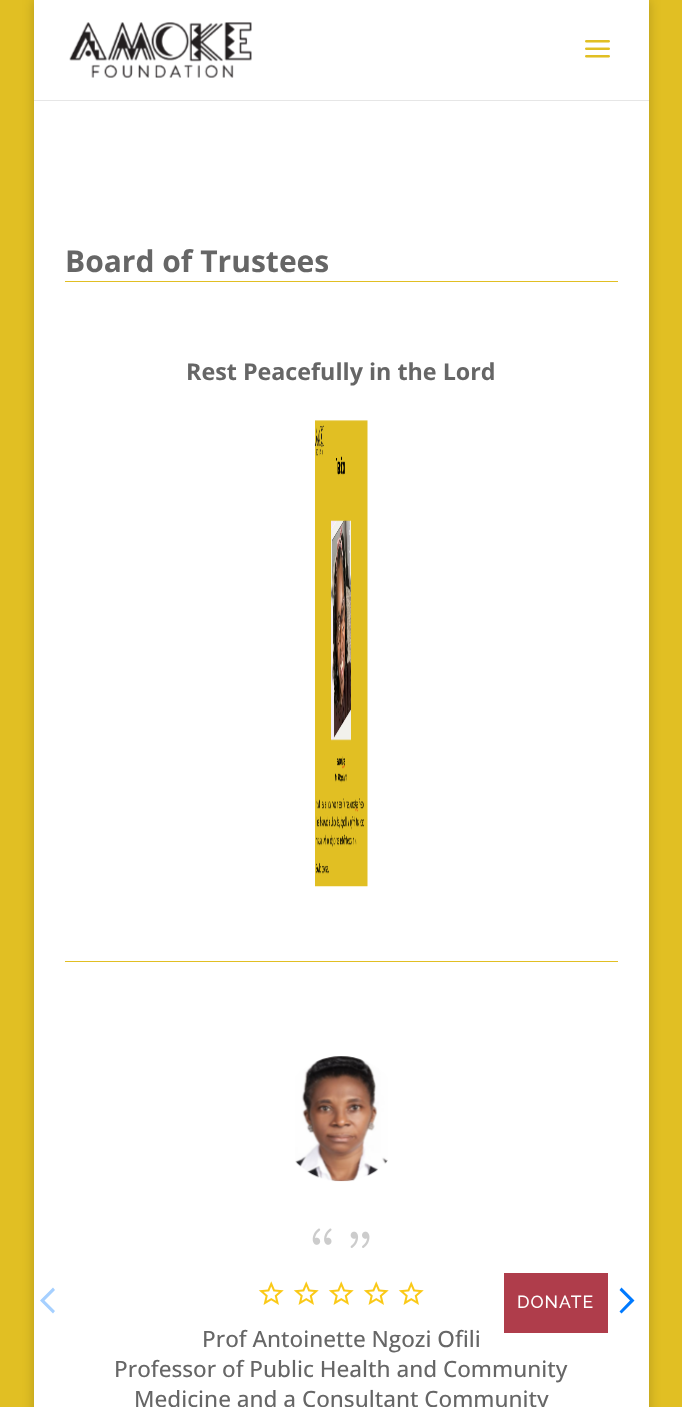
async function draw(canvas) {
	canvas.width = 682;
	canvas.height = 1407;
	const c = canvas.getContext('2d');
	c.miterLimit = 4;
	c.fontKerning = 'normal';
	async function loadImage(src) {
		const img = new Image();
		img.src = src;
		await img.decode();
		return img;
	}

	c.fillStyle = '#e1bf23';
	c.fillRect(0, 0, 682, 1407);
	c.fillStyle = '#00000033';
	c.filter = 'blur(6px)';
	c.beginPath();
	c.rect(34, 0, 615, 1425);
	c.fill();
	c.filter = 'none';
	c.fillStyle = '#e6e6e6';
	c.beginPath();
	c.moveTo(34, 100);
	c.lineTo(34, 101);
	c.lineTo(649, 101);
	c.lineTo(649, 1);
	c.lineTo(649, 100);
	c.closePath();
	c.fill();
	c.fillStyle = '#fff';
	c.fillRect(34, 0, 615, 100);
	c.drawImage(await loadImage('img1.png'), 69, 22, 183, 56);
	c.drawImage(await loadImage('img2.png'), 585, 40, 25, 18);
	c.fillRect(34, 101, 615, 1306);
	c.font = 'bold 30px Open Sans';
	c.fillStyle = '#666';
	c.fillText('Board of Trustees', 65, 272);
	c.fillStyle = '#e1bf23';
	c.fillRect(65, 281, 553, 1);
	c.font = 'bold 23.3px Open Sans';
	c.fillStyle = '#666';
	c.fillText('Rest Peacefully in the Lord', 186, 380);
	c.drawImage(await loadImage('img3.png'), 315, 420, 53, 467);
	c.fillStyle = '#e1bf23';
	c.fillRect(65, 961, 553, 1);
	c.fillStyle = '#a6d0ff';
	c.beginPath();
	c.moveTo(55, 1290);
	c.lineTo(44.5, 1300.5);
	c.lineTo(55, 1311);
	c.lineTo(53, 1313.5);
	c.lineTo(40, 1300.5);
	c.lineTo(53, 1287.5);
	c.closePath();
	c.fill();
	c.fillStyle = '#007aff';
	c.beginPath();
	c.moveTo(619.5, 1311.5);
	c.lineTo(621.5, 1313.5);
	c.lineTo(634.5, 1300.5);
	c.lineTo(621.5, 1287.5);
	c.lineTo(619.5, 1290);
	c.lineTo(630, 1300.5);
	c.closePath();
	c.fill();
	c.drawImage(await loadImage('img4.png'), 295, 1056, 93, 126);
	c.drawImage(await loadImage('img5.png'), 312, 1228, 20, 17);
	c.drawImage(await loadImage('img6.png'), 350, 1231, 20, 17);
	c.drawImage(await loadImage('img7.png'), 258, 1281, 26, 24);
	c.drawImage(await loadImage('img7.png'), 293, 1281, 26, 24);
	c.drawImage(await loadImage('img7.png'), 328, 1281, 26, 24);
	c.drawImage(await loadImage('img7.png'), 363, 1281, 26, 24);
	c.drawImage(await loadImage('img7.png'), 398, 1281, 26, 24);
	c.font = '500 22.5px Open Sans';
	c.fillStyle = '#666';
	for (const [text, x, y] of [
		['Prof Antoinette Ngozi Ofili', 202, 1347],
		['Professor of Public Health and Community', 114, 1377],
		['Medicine and a Consultant Community', 134, 1407],
	]) {
		c.fillText(text, x, y);
	}
	c.fillStyle = '#af3d4b';
	c.fillRect(504, 1273, 104, 60);
	c.letterSpacing = '1px';
	c.font = '500 17.5px Raleway';
	c.fillStyle = '#fff';
	c.fillText('DONATE', 517, 1308);
}

draw(document.querySelector('canvas'));
